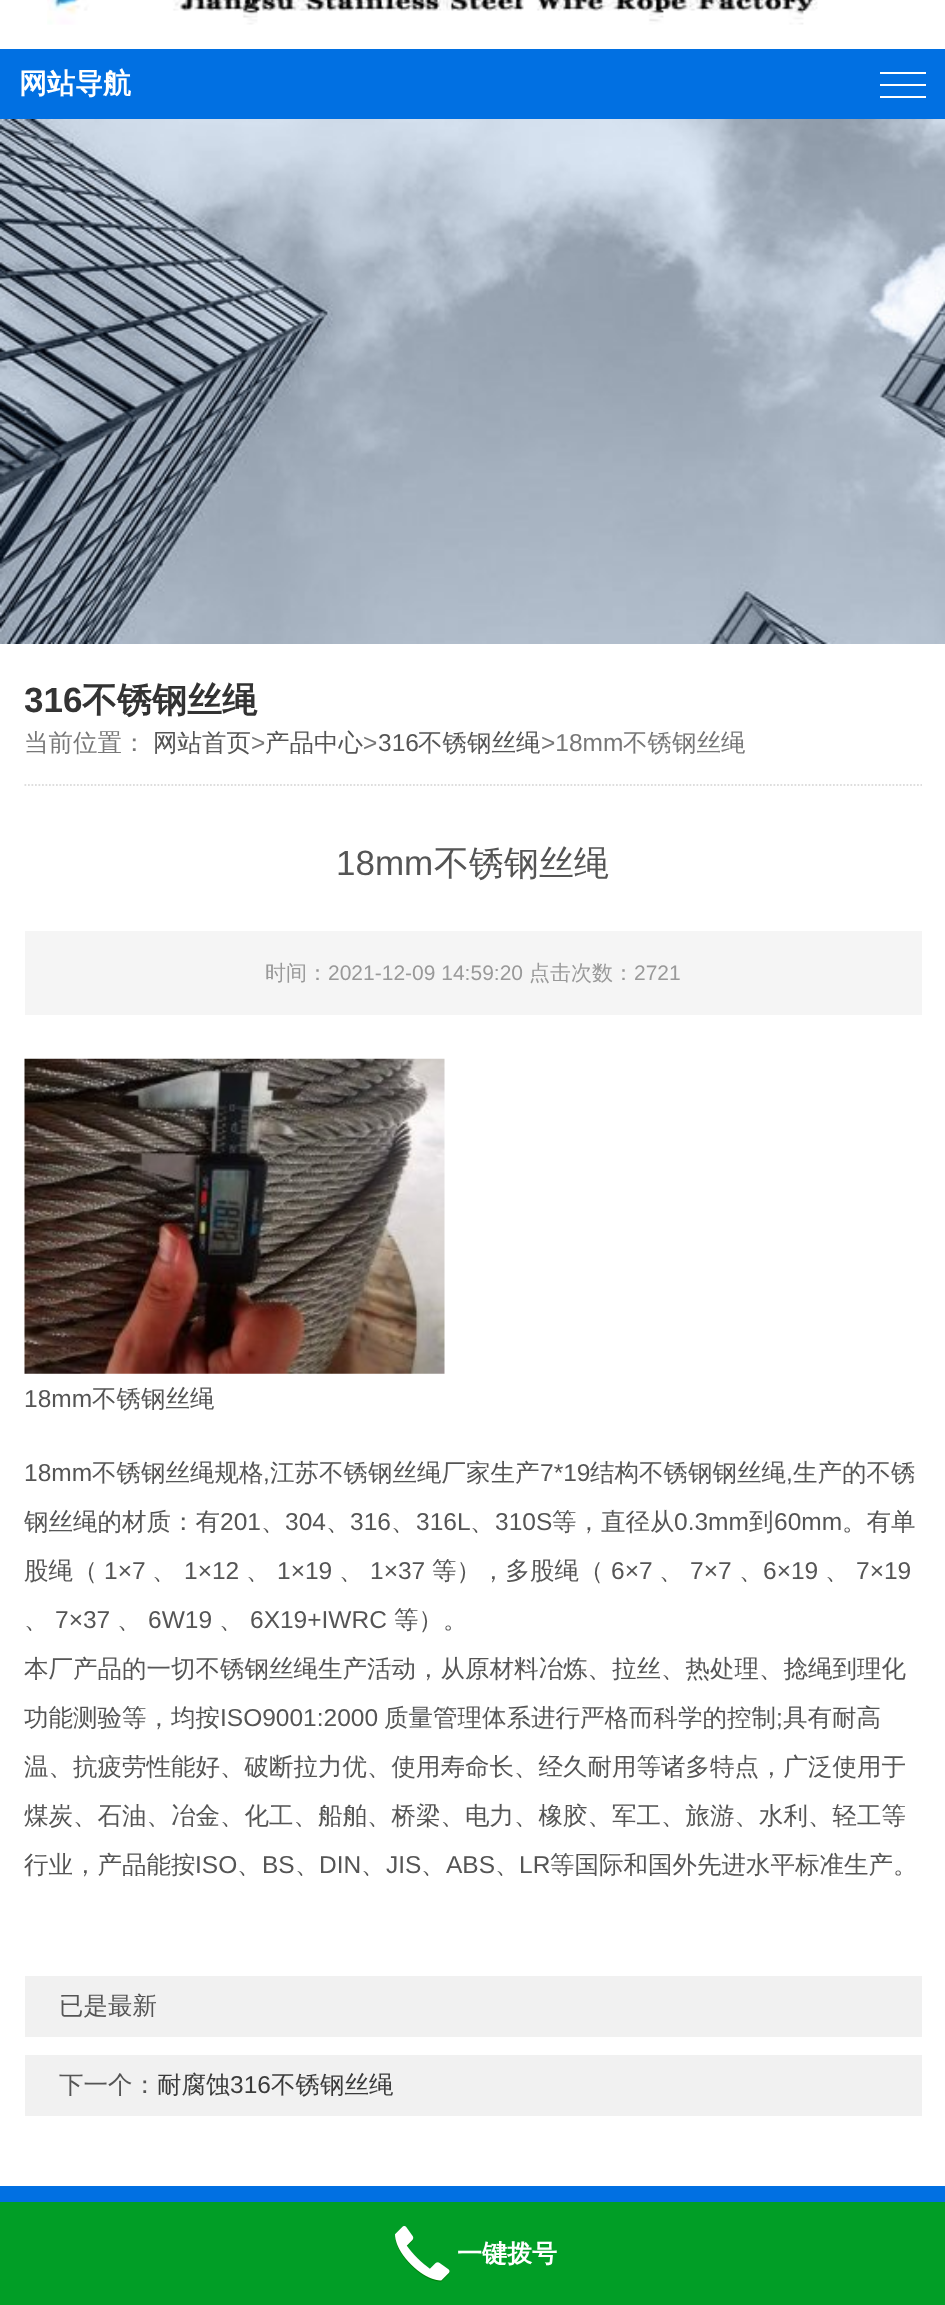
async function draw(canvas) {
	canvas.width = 945;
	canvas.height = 2305;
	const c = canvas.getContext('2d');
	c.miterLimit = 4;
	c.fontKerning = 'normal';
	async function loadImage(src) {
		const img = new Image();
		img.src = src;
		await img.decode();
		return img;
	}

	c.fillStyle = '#fff';
	c.fillRect(0, 0, 945, 2305);
	c.drawImage(await loadImage('img1.png'), 47, 0, 771, 25);
	c.fillStyle = '#0170e2';
	c.fillRect(0, 49, 945, 70);
	c.font = 'bold 28px WenQuanYi Zen Hei';
	c.fillStyle = '#fff';
	c.fillText('网站导航', 19, 93);
	for (const [x, y, w, h, color] of [
		[880, 72, 46, 2, '#fff'],
		[880, 84, 46, 2, '#fff'],
		[880, 96, 46, 2, '#fff'],
	]) {
		c.fillStyle = color;
		c.fillRect(x, y, w, h);
	}
	c.drawImage(await loadImage('img2.png'), 0, 119, 945, 525);
	c.beginPath();
	c.moveTo(24.5, 785);
	c.lineTo(922, 785);
	c.strokeStyle = '#dedede';
	c.lineWidth = 1.8;
	c.setLineDash([1.75, 1.75]);
	c.stroke();
	c.save();
	c.beginPath();
	c.rect(25, 679, 897, 42);
	c.clip();
	c.font = 'bold 35px Liberation Sans';
	c.fillStyle = '#333';
	c.fillText('316', 24, 712);
	c.restore();
	c.font = 'bold 35px WenQuanYi Zen Hei';
	c.fillStyle = '#333';
	c.fillText('不锈钢丝绳', 82, 712);
	c.font = '500 24.5px WenQuanYi Zen Hei';
	c.fillStyle = '#777';
	c.fillText('当前位置：', 24, 751);
	c.fillStyle = '#555';
	c.fillText('网站首页', 153, 751);
	c.font = '24.5px Liberation Sans';
	c.fillStyle = '#777';
	c.fillText('>', 251, 751);
	c.font = '500 24.5px WenQuanYi Zen Hei';
	c.fillStyle = '#555';
	c.fillText('产品中心', 265, 751);
	c.font = '24.5px Liberation Sans';
	c.fillStyle = '#777';
	c.fillText('>', 363, 751);
	c.fillStyle = '#555';
	c.fillText('316', 378, 751);
	c.font = '500 24.5px WenQuanYi Zen Hei';
	c.fillText('不锈钢丝绳', 418, 751);
	c.font = '24.5px Liberation Sans';
	c.fillStyle = '#777';
	c.fillText('>18mm', 541, 751);
	c.font = '500 24.5px WenQuanYi Zen Hei';
	c.fillText('不锈钢丝绳', 623, 751);
	c.font = '35px Liberation Sans';
	c.fillStyle = '#555';
	c.fillText('18mm', 336, 875);
	c.font = '500 35px WenQuanYi Zen Hei';
	c.fillText('不锈钢丝绳', 434, 875);
	c.fillStyle = '#f5f5f5';
	c.fillRect(25, 931, 897, 84);
	c.font = '500 21px WenQuanYi Zen Hei';
	c.fillStyle = '#999';
	c.fillText('时间：', 265, 980);
	c.font = '21px Liberation Sans';
	c.fillText('2021-12-09 14:59:20', 328, 980);
	c.font = '500 21px WenQuanYi Zen Hei';
	c.fillText('点击次数：', 529, 980);
	c.font = '21px Liberation Sans';
	c.fillText('2721', 634, 980);
	c.drawImage(await loadImage('img3.png'), 24, 1058, 421, 316);
	c.font = '24.5px Liberation Sans';
	c.fillStyle = '#555';
	c.fillText('18mm', 24, 1407);
	c.font = '500 24.5px WenQuanYi Zen Hei';
	c.fillText('不锈钢丝绳', 92, 1407);
	c.font = '24.5px Liberation Sans';
	c.fillText('18mm', 24, 1481);
	c.font = '500 24.5px WenQuanYi Zen Hei';
	c.fillText('不锈钢丝绳规格', 92, 1481);
	c.font = '24.5px Liberation Sans';
	c.fillText(',', 263, 1481);
	c.font = '500 24.5px WenQuanYi Zen Hei';
	c.fillText('江苏不锈钢丝绳厂家生产', 270, 1481);
	c.font = '24.5px Liberation Sans';
	c.fillText('7*19', 540, 1481);
	c.font = '500 24.5px WenQuanYi Zen Hei';
	c.fillText('结构不锈钢钢丝绳', 590, 1481);
	c.font = '24.5px Liberation Sans';
	c.fillText(',', 786, 1481);
	c.font = '500 24.5px WenQuanYi Zen Hei';
	c.fillText('生产的不锈', 793, 1481);
	c.fillText('钢丝绳的材质：有', 24, 1530);
	c.font = '24.5px Liberation Sans';
	c.fillText('201', 220, 1530);
	c.font = '500 24.5px WenQuanYi Zen Hei';
	c.fillText('、', 261, 1530);
	c.font = '24.5px Liberation Sans';
	c.fillText('304', 285, 1530);
	c.font = '500 24.5px WenQuanYi Zen Hei';
	c.fillText('、', 326, 1530);
	c.font = '24.5px Liberation Sans';
	c.fillText('316', 350, 1530);
	c.font = '500 24.5px WenQuanYi Zen Hei';
	c.fillText('、', 391, 1530);
	c.font = '24.5px Liberation Sans';
	c.fillText('316L', 416, 1530);
	c.font = '500 24.5px WenQuanYi Zen Hei';
	c.fillText('、', 470, 1530);
	c.font = '24.5px Liberation Sans';
	c.fillText('310S', 495, 1530);
	c.font = '500 24.5px WenQuanYi Zen Hei';
	c.fillText('等，直径从', 552, 1530);
	c.font = '24.5px Liberation Sans';
	c.fillText('0.3mm', 674, 1530);
	c.font = '500 24.5px WenQuanYi Zen Hei';
	c.fillText('到', 749, 1530);
	c.font = '24.5px Liberation Sans';
	c.fillText('60mm', 774, 1530);
	c.font = '500 24.5px WenQuanYi Zen Hei';
	c.fillText('。有单', 842, 1530);
	c.fillText('股绳（', 24, 1579);
	c.font = '24.5px Liberation Sans';
	for (const [text, x, y] of [
		['1×7', 104, 1579],
		['1×12', 184, 1579],
		['1×19', 277, 1579],
		['1×37', 370, 1579],
	]) {
		c.fillText(text, x, y);
	}
	c.font = '500 24.5px WenQuanYi Zen Hei';
	c.fillText('等），多股绳（', 432, 1579);
	c.font = '24.5px Liberation Sans';
	for (const [text, x, y] of [
		['6×7', 611, 1579],
		['7×7', 690, 1579],
		['6×19', 763, 1579],
		['7×19', 856, 1579],
	]) {
		c.fillText(text, x, y);
	}
	c.font = '500 24.5px WenQuanYi Zen Hei';
	for (const [text, x, y] of [
		['、', 152, 1579],
		['、', 246, 1579],
		['、', 339, 1579],
		['、', 659, 1579],
		['、', 739, 1579],
		['、', 825, 1579],
		['、', 24, 1628],
	]) {
		c.fillText(text, x, y);
	}
	c.font = '24.5px Liberation Sans';
	c.fillText('7×37', 55, 1628);
	c.font = '500 24.5px WenQuanYi Zen Hei';
	c.fillText('、', 117, 1628);
	c.font = '24.5px Liberation Sans';
	c.fillText('6W19', 148, 1628);
	c.font = '500 24.5px WenQuanYi Zen Hei';
	c.fillText('、', 219, 1628);
	c.font = '24.5px Liberation Sans';
	c.fillText('6X19+IWRC', 250, 1628);
	c.font = '500 24.5px WenQuanYi Zen Hei';
	for (const [text, x, y] of [
		['等）。', 394, 1628],
		['本厂产品的一切不锈钢丝绳生产活动，从原材料冶炼、拉丝、热处理、捻绳到理化', 24, 1677],
		['功能测验等，均按', 24, 1726],
	]) {
		c.fillText(text, x, y);
	}
	c.font = '24.5px Liberation Sans';
	c.fillText('ISO9001:2000', 220, 1726);
	c.font = '500 24.5px WenQuanYi Zen Hei';
	c.fillText('质量管理体系进行严格而科学的控制', 384, 1726);
	c.font = '24.5px Liberation Sans';
	c.fillText(';', 776, 1726);
	c.font = '500 24.5px WenQuanYi Zen Hei';
	for (const [text, x, y] of [
		['具有耐高', 783, 1726],
		['温、抗疲劳性能好、破断拉力优、使用寿命长、经久耐用等诸多特点，广泛使用于', 24, 1775],
		['煤炭、石油、冶金、化工、船舶、桥梁、电力、橡胶、军工、旅游、水利、轻工等', 24, 1824],
		['行业，产品能按', 24, 1873],
	]) {
		c.fillText(text, x, y);
	}
	c.font = '24.5px Liberation Sans';
	for (const [text, x, y] of [
		['ISO', 195, 1873],
		['BS', 262, 1873],
		['DIN', 319, 1873],
		['JIS', 386, 1873],
		['ABS', 446, 1873],
		['LR', 519, 1873],
	]) {
		c.fillText(text, x, y);
	}
	c.font = '500 24.5px WenQuanYi Zen Hei';
	for (const [text, x, y] of [
		['等国际和国外先进水平标准生产。', 550, 1873],
		['、', 237, 1873],
		['、', 295, 1873],
		['、', 361, 1873],
		['、', 421, 1873],
		['、', 495, 1873],
	]) {
		c.fillText(text, x, y);
	}
	c.fillStyle = '#f1f1f1';
	c.fillRect(25, 1976, 897, 61);
	c.fillStyle = '#555';
	c.fillText('已是最新', 59, 2014);
	c.fillStyle = '#f1f1f1';
	c.fillRect(25, 2055, 897, 61);
	c.fillStyle = '#555';
	c.fillText('下一个：', 59, 2093);
	c.fillStyle = '#3a3a3a';
	c.fillText('耐腐蚀', 157, 2093);
	c.font = '24.5px Liberation Sans';
	c.fillText('316', 230, 2093);
	c.font = '500 24.5px WenQuanYi Zen Hei';
	c.fillText('不锈钢丝绳', 271, 2093);
	c.fillStyle = '#0170e2';
	c.fillRect(0, 2186, 945, 16);
	c.fillStyle = '#019e26';
	c.fillRect(0, 2202, 945, 103);
	c.drawImage(await loadImage('img4.png'), 395, 2226, 55, 56);
	c.font = 'bold 25px WenQuanYi Zen Hei';
	c.fillStyle = '#fff';
	c.fillText('一键拨号', 457, 2262);
}

draw(document.querySelector('canvas'));
